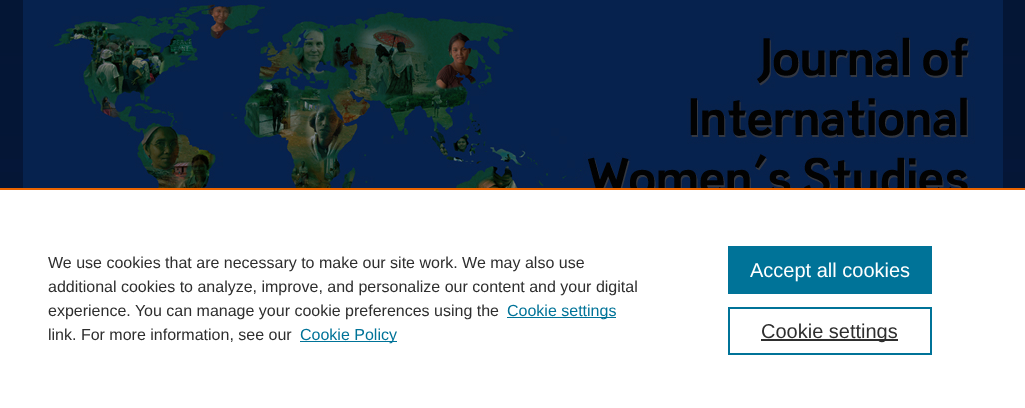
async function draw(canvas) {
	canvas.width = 1025;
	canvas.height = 408;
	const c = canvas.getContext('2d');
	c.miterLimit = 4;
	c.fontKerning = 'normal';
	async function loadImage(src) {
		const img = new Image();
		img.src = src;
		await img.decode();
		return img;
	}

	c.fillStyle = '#fff';
	c.fillRect(0, 0, 1025, 408);
	c.drawImage(await loadImage('img1.png'), 0, 0, 1025, 188);
	c.drawImage(await loadImage('img2.png'), 23, 0, 980, 188);
	c.fillStyle = '#eb6500';
	c.fillRect(0, 188, 1025, 2);
	c.font = '16px Liberation Sans';
	c.fillStyle = '#2e2e2e';
	for (const [text, x, y] of [
		['We use cookies that are necessary to make our site work. We may also use', 48, 268],
		['additional cookies to analyze, improve, and personalize our content and your digital', 48, 292],
		['experience. You can manage your cookie preferences using the', 48, 316],
	]) {
		c.fillText(text, x, y);
	}
	c.fillStyle = '#007398';
	c.fillRect(507, 317, 109, 1);
	c.fillText('Cookie settings', 507, 316);
	c.fillStyle = '#2e2e2e';
	c.fillText('link. For more information, see our', 48, 340);
	c.fillStyle = '#007398';
	c.fillRect(300, 341, 97, 1);
	c.fillText('Cookie Policy', 300, 340);
	c.fillRect(728, 246, 204, 48);
	c.font = '20px Liberation Sans';
	c.fillStyle = '#fff';
	c.fillText('Accept all cookies', 750, 277);
	c.strokeStyle = '#007398';
	c.lineWidth = 2;
	c.strokeRect(729, 308, 202, 46);
	c.fillStyle = '#2e2e2e';
	c.fillRect(761, 339, 137, 2);
	c.fillText('Cookie settings', 761, 338);
}

draw(document.querySelector('canvas'));
